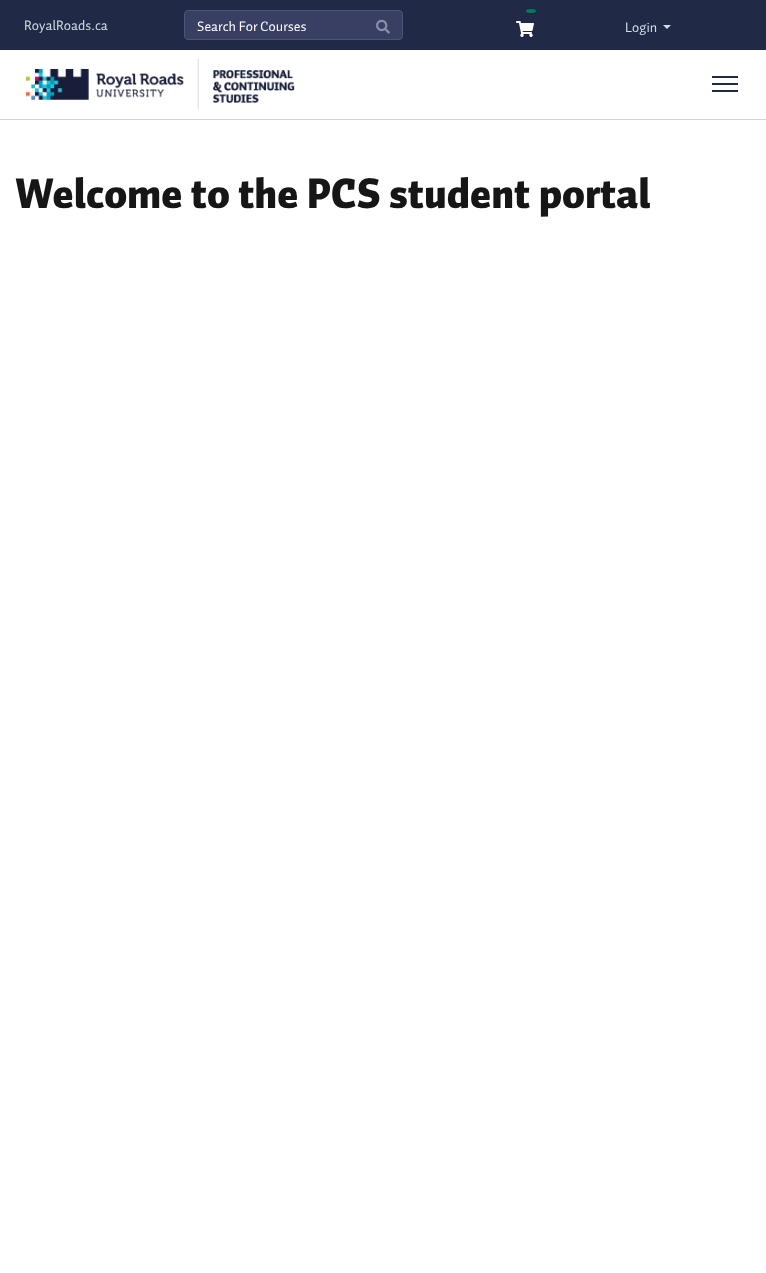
async function draw(canvas) {
	canvas.width = 766;
	canvas.height = 1273;
	const c = canvas.getContext('2d');
	c.miterLimit = 4;
	c.fontKerning = 'normal';
	async function loadImage(src) {
		const img = new Image();
		img.src = src;
		await img.decode();
		return img;
	}

	c.fillStyle = '#fff';
	c.fillRect(0, 0, 766, 1273);
	c.fillStyle = '#202945';
	c.fillRect(0, 0, 766, 50);
	c.font = '14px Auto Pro';
	c.fillStyle = '#d2dce5';
	c.fillText('RoyalRoads.ca', 24, 30);
	c.fillStyle = '#383f62';
	c.beginPath();
	c.roundRect(184.5, 10.5, 218, 29, 3.5);
	c.fill();
	c.strokeStyle = '#4c5477';
	c.stroke();
	c.fillStyle = '#fff';
	c.fillText('Search For Courses', 197, 31);
	c.drawImage(await loadImage('img1.png'), 376, 19, 14, 15);
	c.fillStyle = '#007a5e';
	c.beginPath();
	c.ellipse(531, 11, 5, 2, 0, 0, 2 * Math.PI);
	c.fill();
	c.drawImage(await loadImage('img2.png'), 516, 21, 18, 16);
	c.fillStyle = '#d2dce5';
	c.fillText('Login', 625, 32);
	c.beginPath();
	c.moveTo(663, 25);
	c.lineTo(671, 25);
	c.lineTo(667, 29);
	c.closePath();
	c.fill();
	c.fillStyle = '#d3d3d3';
	c.fillRect(0, 119, 766, 1);
	c.drawImage(await loadImage('img3.png'), 25, 59, 270, 51);
	for (const [x, y, w, h, color] of [
		[712, 76, 26, 2, '#202945'],
		[712, 83, 26, 2, '#202945'],
		[712, 90, 26, 2, '#202945'],
	]) {
		c.fillStyle = color;
		c.fillRect(x, y, w, h);
	}
	c.font = '900 42px Auto Pro';
	c.fillStyle = '#161616';
	c.fillText('Welcome to the PCS student portal', 15, 208);
}

draw(document.querySelector('canvas'));
